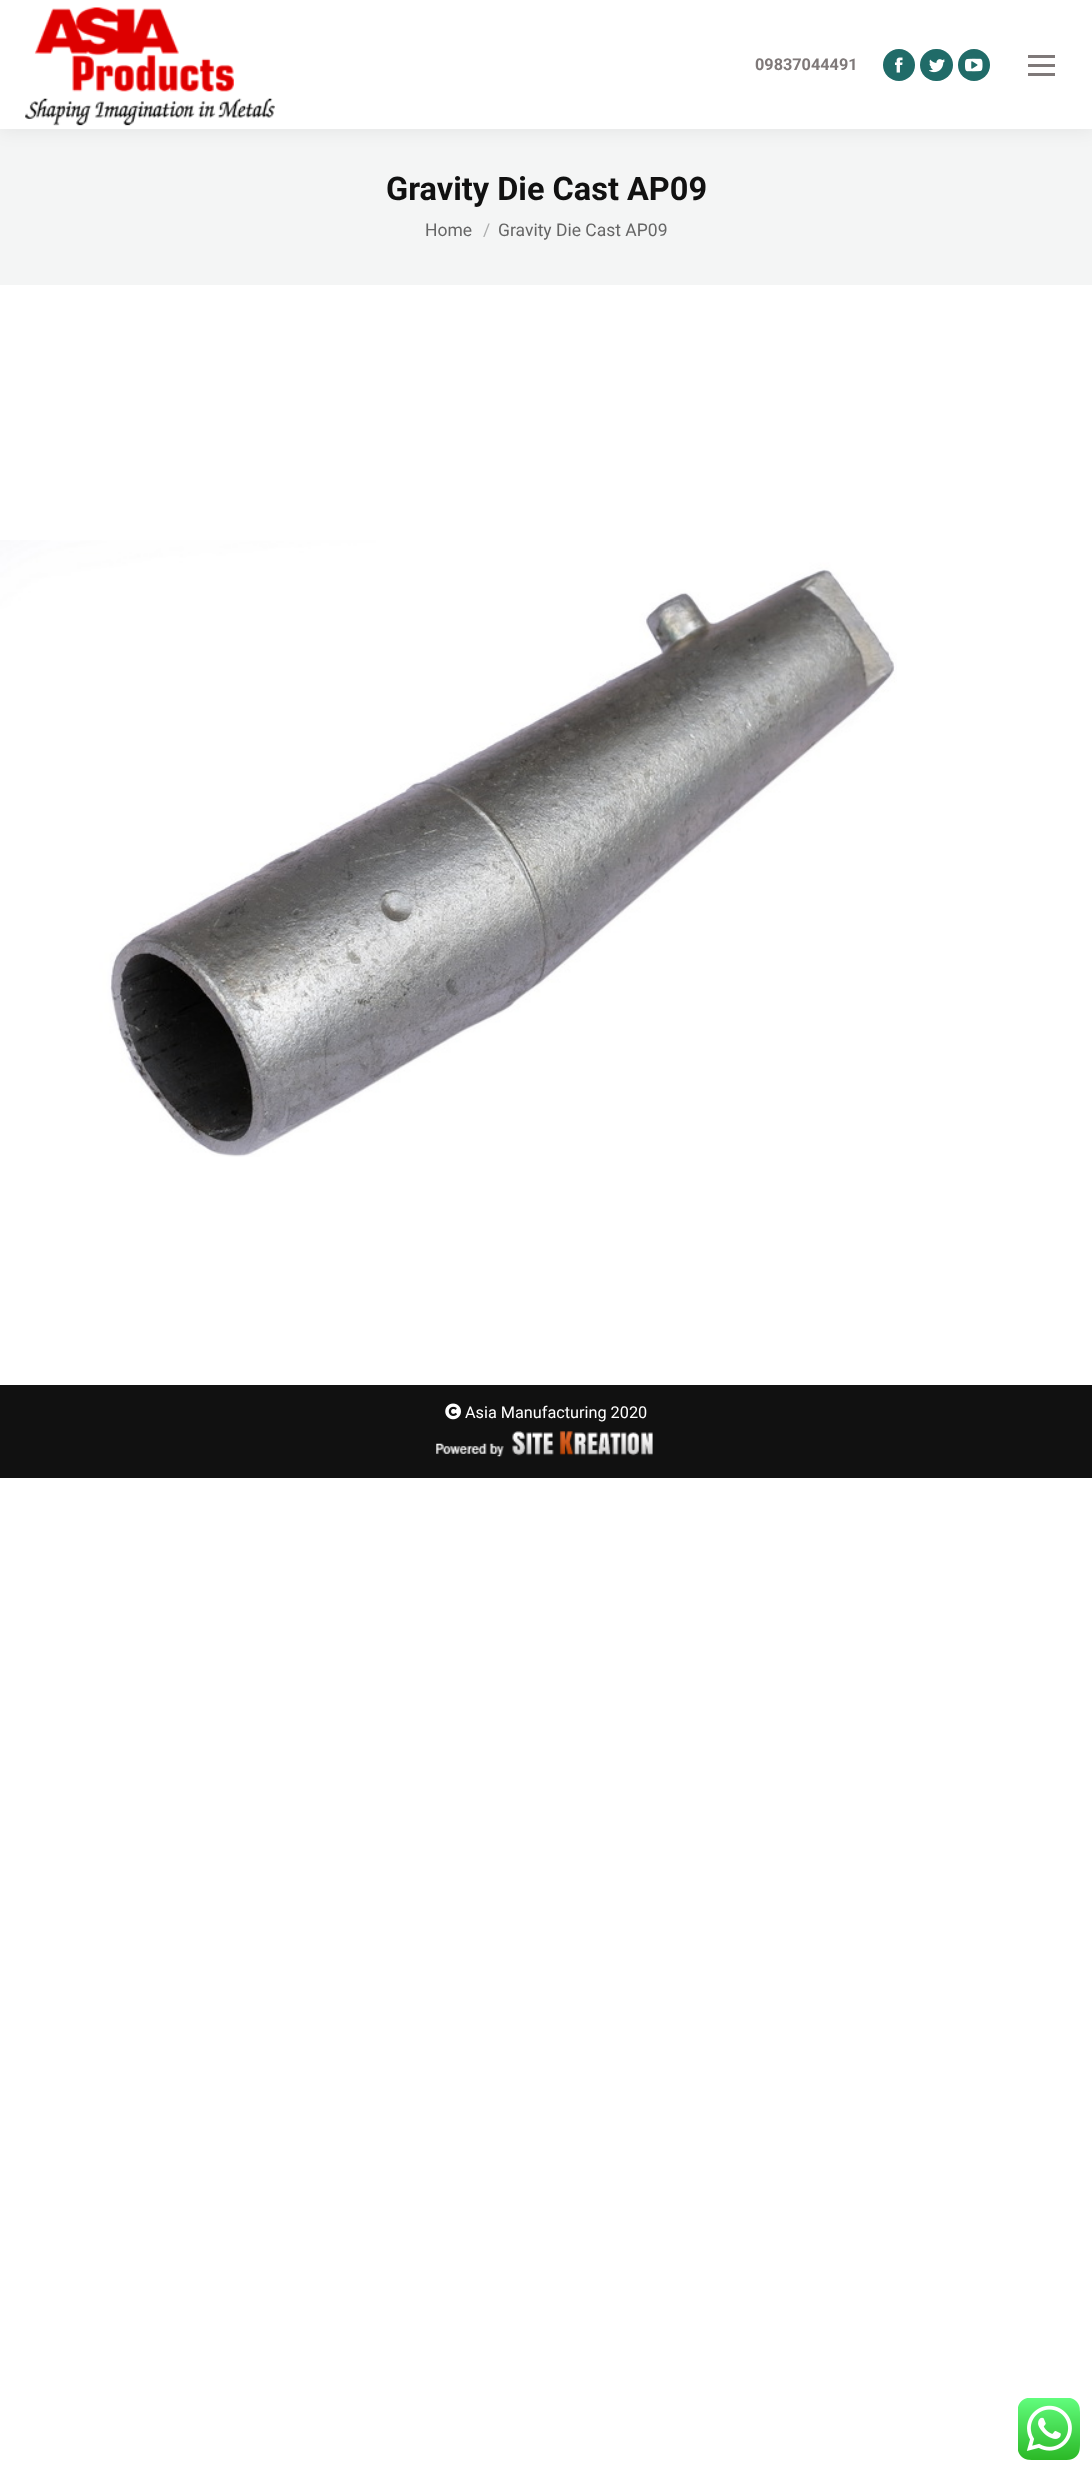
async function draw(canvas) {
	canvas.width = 1092;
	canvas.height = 2472;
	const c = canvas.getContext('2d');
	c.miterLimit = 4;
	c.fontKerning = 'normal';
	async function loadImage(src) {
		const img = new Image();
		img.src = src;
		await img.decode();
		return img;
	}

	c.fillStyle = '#fff';
	c.fillRect(0, 0, 1092, 2472);
	c.fillStyle = '#f4f5f5';
	c.fillRect(0, 129, 1092, 156);
	c.fillStyle = '#00000012';
	c.filter = 'blur(9.5px)';
	c.beginPath();
	c.rect(-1, -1, 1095, 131);
	c.fill();
	c.filter = 'none';
	c.fillStyle = '#fff';
	c.fillRect(0, 0, 1092, 129);
	c.drawImage(await loadImage('img1.png'), 25, 7, 250, 119);
	c.font = 'bold 16.25px Roboto';
	c.fillStyle = '#7f7979';
	c.fillText('09837044491', 755, 70);
	c.fillStyle = '#206b68';
	c.beginPath();
	c.arc(899, 65, 16, 0, 2 * Math.PI);
	c.fill();
	c.drawImage(await loadImage('img2.png'), 895, 57, 8, 16);
	c.beginPath();
	c.roundRect(920, 49, 33, 32, 16);
	c.fill();
	c.drawImage(await loadImage('img3.png'), 929, 59, 16, 14);
	c.beginPath();
	c.arc(974, 65, 16, 0, 2 * Math.PI);
	c.fill();
	c.drawImage(await loadImage('img4.png'), 965, 58, 18, 14);
	for (const [x, y, w, h, color] of [
		[1028, 55, 27, 3, '#7f7979'],
		[1028, 64, 27, 3, '#7f7979'],
		[1028, 73, 27, 3, '#7f7979'],
	]) {
		c.fillStyle = color;
		c.fillRect(x, y, w, h);
	}
	c.font = 'bold 32.5px Roboto';
	c.fillStyle = '#111';
	c.fillText('Gravity Die Cast AP09', 386, 200);
	c.font = '17.5px Roboto';
	c.fillStyle = '#666';
	c.fillText('Home', 425, 236);
	c.fillStyle = '#adaeae';
	c.fillText('/', 483, 236);
	c.fillStyle = '#666';
	c.fillText('Gravity Die Cast AP09', 498, 236);
	c.drawImage(await loadImage('img5.png'), 0, 540, 897, 617);
	c.fillStyle = '#111';
	c.fillRect(0, 1385, 1092, 93);
	c.drawImage(await loadImage('img6.png'), 445, 1403, 16, 17);
	c.font = '16.25px Roboto';
	c.fillStyle = '#fff';
	c.fillText('Asia Manufacturing 2020', 465, 1418);
	c.drawImage(await loadImage('img7.png'), 436, 1431, 217, 26);
	c.drawImage(await loadImage('img8.png'), 1018, 2398, 62, 62);
}

draw(document.querySelector('canvas'));
